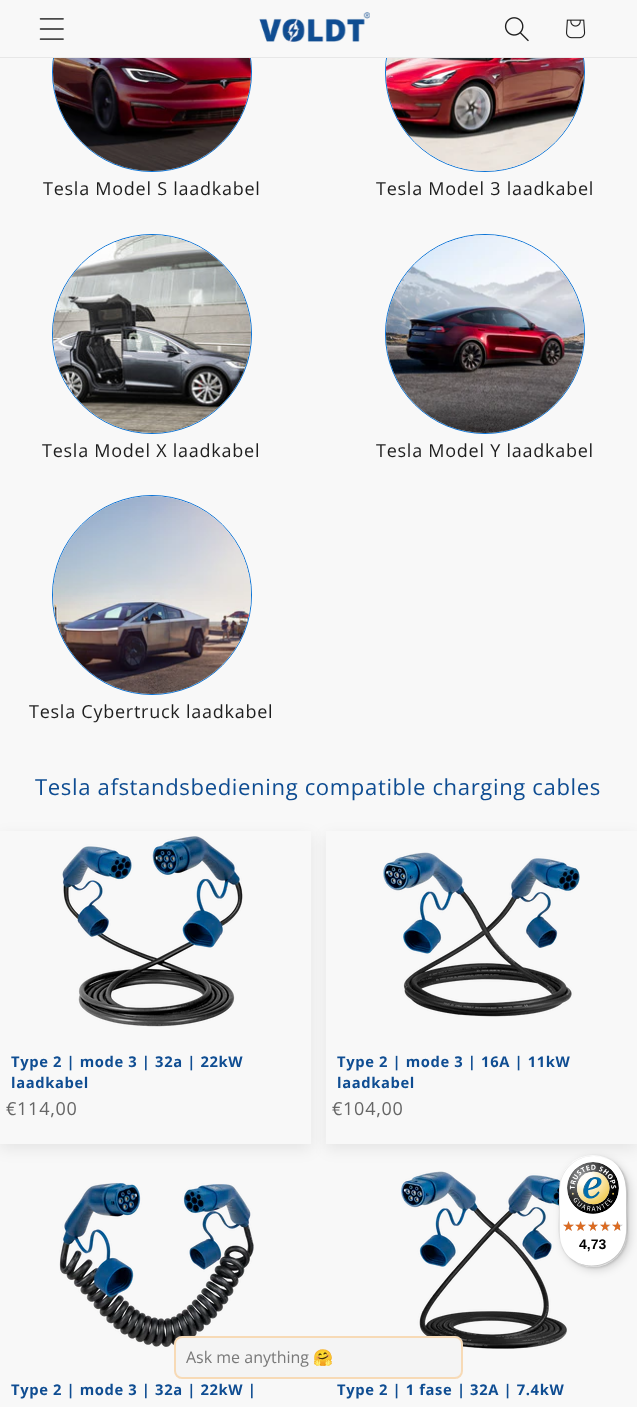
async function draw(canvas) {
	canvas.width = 637;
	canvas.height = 1407;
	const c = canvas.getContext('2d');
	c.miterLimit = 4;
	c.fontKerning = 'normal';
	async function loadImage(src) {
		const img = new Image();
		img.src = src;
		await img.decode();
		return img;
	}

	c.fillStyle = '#f8f8f8';
	c.fillRect(0, 0, 637, 1407);
	c.beginPath();
	c.arc(152, 72, 99.5, 0, 2 * Math.PI);
	c.strokeStyle = '#0872d6';
	c.stroke();
	c.beginPath();
	c.arc(485, 72, 99.5, 0, 2 * Math.PI);
	c.stroke();
	c.fillRect(53, 0, 531, 57);
	c.fillStyle = '#e7e7e7';
	c.fillRect(0, 57, 637, 1);
	c.drawImage(await loadImage('img1.png'), 39, 18, 25, 22);
	c.drawImage(await loadImage('img2.png'), 259, 12, 111, 31);
	c.drawImage(await loadImage('img3.png'), 504, 17, 25, 25);
	c.drawImage(await loadImage('img4.png'), 566, 19, 20, 20);
	c.drawImage(await loadImage('img5.png'), 53, 58, 198, 113);
	c.letterSpacing = '0.75px';
	c.font = '18px Open Sans';
	c.fillStyle = '#1e1e1e';
	c.fillText('Tesla Model S laadkabel', 43, 195);
	c.drawImage(await loadImage('img6.png'), 386, 58, 198, 113);
	c.fillText('Tesla Model 3 laadkabel', 376, 195);
	c.beginPath();
	c.arc(152, 334, 99.5, 0, 2 * Math.PI);
	c.stroke();
	c.drawImage(await loadImage('img7.png'), 53, 235, 198, 198);
	c.fillText('Tesla Model X laadkabel', 42, 457);
	c.beginPath();
	c.arc(485, 334, 99.5, 0, 2 * Math.PI);
	c.stroke();
	c.drawImage(await loadImage('img8.png'), 386, 235, 198, 198);
	c.fillText('Tesla Model Y laadkabel', 376, 457);
	c.beginPath();
	c.arc(152, 595, 99.5, 0, 2 * Math.PI);
	c.stroke();
	c.drawImage(await loadImage('img9.png'), 53, 496, 198, 198);
	c.fillText('Tesla Cybertruck laadkabel', 29, 718);
	c.letterSpacing = '0.63px';
	c.font = '22.1px Open Sans';
	c.fillStyle = '#0f4d92';
	c.fillText('Tesla afstandsbediening compatible charging cables', 35, 795);
	c.save();
	c.beginPath();
	c.moveTo(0, 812);
	c.lineTo(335, 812);
	c.lineTo(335, 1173);
	c.lineTo(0, 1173);
	c.closePath();
	c.moveTo(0, 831);
	c.lineTo(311, 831);
	c.lineTo(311, 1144);
	c.lineTo(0, 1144);
	c.closePath();
	c.clip('evenodd');
	c.fillStyle = '#00000014';
	c.filter = 'blur(7.5px)';
	c.beginPath();
	c.rect(0, 836, 311, 313);
	c.fill();
	c.filter = 'none';
	c.restore();
	c.drawImage(await loadImage('img10.png'), 62, 836, 181, 191);
	c.font = 'bold 14.75px Open Sans';
	c.fillText('Type 2 | mode 3 | 32a | 22kW', 11, 1067);
	c.fillText('laadkabel', 11, 1088);
	c.letterSpacing = '0.75px';
	c.font = '18px Open Sans';
	c.fillStyle = '#666';
	c.fillText('€114,00', 6, 1115);
	c.save();
	c.beginPath();
	c.moveTo(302, 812);
	c.lineTo(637, 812);
	c.lineTo(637, 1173);
	c.lineTo(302, 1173);
	c.closePath();
	c.moveTo(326, 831);
	c.lineTo(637, 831);
	c.lineTo(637, 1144);
	c.lineTo(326, 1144);
	c.closePath();
	c.clip('evenodd');
	c.fillStyle = '#00000014';
	c.filter = 'blur(7.5px)';
	c.beginPath();
	c.rect(326, 836, 311, 313);
	c.fill();
	c.filter = 'none';
	c.restore();
	c.drawImage(await loadImage('img11.png'), 383, 852, 197, 165);
	c.letterSpacing = '0.63px';
	c.font = 'bold 14.75px Open Sans';
	c.fillStyle = '#0f4d92';
	c.fillText('Type 2 | mode 3 | 16A | 11kW', 337, 1067);
	c.fillText('laadkabel', 337, 1088);
	c.letterSpacing = '0.75px';
	c.font = '18px Open Sans';
	c.fillStyle = '#666';
	c.fillText('€104,00', 332, 1115);
	c.drawImage(await loadImage('img12.png'), 59, 1183, 195, 164);
	c.letterSpacing = '0.63px';
	c.font = 'bold 14.75px Open Sans';
	c.fillStyle = '#0f4d92';
	c.fillText('Type 2 | mode 3 | 32a | 22kW |', 11, 1395);
	c.drawImage(await loadImage('img13.png'), 401, 1171, 166, 178);
	c.fillText('Type 2 | 1 fase | 32A | 7.4kW', 337, 1395);
	c.fillStyle = '#00000026';
	c.filter = 'blur(4px)';
	c.beginPath();
	c.roundRect(562, 1158, 68, 112, 34);
	c.fill();
	c.filter = 'none';
	c.filter = 'blur(1px)';
	c.beginPath();
	c.roundRect(560, 1156, 68, 112, 34);
	c.fill();
	c.filter = 'none';
	c.fillStyle = '#fff';
	c.beginPath();
	c.roundRect(559, 1155, 68, 112, 34);
	c.fill();
	c.fillStyle = '#0000001a';
	c.beginPath();
	c.moveTo(594, 1156);
	c.bezierCurveTo(602, 1156, 610, 1159, 616, 1164);
	c.bezierCurveTo(599, 1149, 571, 1155, 562, 1176);
	c.bezierCurveTo(557, 1186, 559, 1200, 559, 1211);
	c.bezierCurveTo(559, 1226, 556, 1243, 568, 1256);
	c.bezierCurveTo(563, 1250, 560, 1242, 560, 1234);
	c.lineTo(560, 1190);
	c.bezierCurveTo(560, 1171, 575, 1156, 594, 1156);
	c.closePath();
	c.fill();
	c.fillStyle = '#00000033';
	c.beginPath();
	c.moveTo(570, 1258);
	c.bezierCurveTo(587, 1273, 615, 1267, 624, 1246);
	c.bezierCurveTo(629, 1236, 627, 1222, 627, 1211);
	c.bezierCurveTo(627, 1196, 630, 1179, 618, 1166);
	c.bezierCurveTo(628, 1179, 626, 1195, 626, 1210);
	c.bezierCurveTo(626, 1221, 628, 1235, 623, 1245);
	c.bezierCurveTo(615, 1266, 587, 1272, 570, 1258);
	c.closePath();
	c.fill();
	c.fillStyle = '#32323233';
	c.beginPath();
	c.moveTo(566, 1254);
	c.bezierCurveTo(573, 1262, 582, 1267, 593, 1267);
	c.bezierCurveTo(612, 1267, 627, 1252, 627, 1233);
	c.lineTo(627, 1189);
	c.bezierCurveTo(627, 1178, 622, 1169, 614, 1162);
	c.bezierCurveTo(621, 1169, 626, 1178, 626, 1188);
	c.lineTo(626, 1232);
	c.bezierCurveTo(626, 1251, 611, 1266, 592, 1266);
	c.bezierCurveTo(582, 1266, 573, 1261, 566, 1254);
	c.closePath();
	c.fill();
	c.fillStyle = '#ffffff4d';
	c.beginPath();
	c.moveTo(566, 1254);
	c.bezierCurveTo(573, 1262, 582, 1267, 593, 1267);
	c.bezierCurveTo(612, 1267, 627, 1252, 627, 1233);
	c.lineTo(627, 1189);
	c.bezierCurveTo(627, 1178, 622, 1169, 614, 1162);
	c.bezierCurveTo(621, 1169, 626, 1178, 626, 1188);
	c.lineTo(626, 1232);
	c.bezierCurveTo(626, 1251, 611, 1266, 592, 1266);
	c.bezierCurveTo(582, 1266, 573, 1261, 566, 1254);
	c.closePath();
	c.fill();
	c.drawImage(await loadImage('img14.png'), 567, 1162, 52, 52);
	c.drawImage(await loadImage('img15.png'), 563, 1221, 11, 10);
	c.drawImage(await loadImage('img16.png'), 576, 1221, 10, 10);
	c.drawImage(await loadImage('img16.png'), 588, 1221, 10, 10);
	c.drawImage(await loadImage('img17.png'), 600, 1221, 11, 10);
	c.drawImage(await loadImage('img17.png'), 612, 1221, 11, 10);
	c.drawImage(await loadImage('img18.png'), 563, 1221, 11, 10);
	c.drawImage(await loadImage('img19.png'), 575, 1221, 11, 10);
	c.drawImage(await loadImage('img20.png'), 588, 1221, 10, 10);
	c.drawImage(await loadImage('img21.png'), 600, 1221, 10, 10);
	c.drawImage(await loadImage('img22.png'), 612, 1221, 8, 10);
	c.letterSpacing = '0px';
	c.font = 'bold 14px Liberation Sans';
	c.fillStyle = '#000';
	c.fillText('4,73', 579, 1249);
	c.fillStyle = '#f4f4f4';
	c.beginPath();
	c.roundRect(174, 1336, 289, 43, 8);
	c.fill();
	c.beginPath();
	c.roundRect(175, 1337, 287, 41, 7);
	c.strokeStyle = '#ffa0284d';
	c.lineWidth = 2;
	c.stroke();
	c.font = '16px Open Sans';
	c.fillStyle = '#797979';
	c.fillText('Ask me anything', 186, 1363);
	c.font = '16px Noto Color Emoji';
	c.fillText('🤗', 313, 1363);
}

draw(document.querySelector('canvas'));
